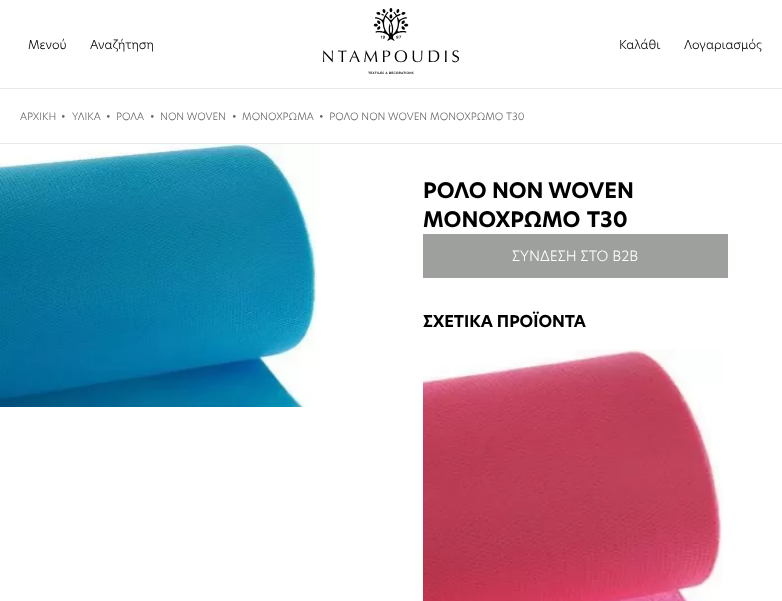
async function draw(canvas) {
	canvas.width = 782;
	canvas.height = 601;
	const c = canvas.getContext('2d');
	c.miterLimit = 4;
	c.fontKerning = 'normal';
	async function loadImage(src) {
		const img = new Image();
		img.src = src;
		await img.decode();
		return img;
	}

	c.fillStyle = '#fff';
	c.fillRect(0, 0, 782, 601);
	c.font = '300 12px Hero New';
	c.fillStyle = '#000';
	c.fillText('Μενού', 28, 49);
	c.fillText('Αναζήτηση', 90, 49);
	c.drawImage(await loadImage('img1.png'), 323, 8, 136, 66);
	c.fillText('Καλάθι', 619, 49);
	c.fillText('Λογαριασμός', 684, 49);
	c.fillStyle = '#e9e9e9';
	c.fillRect(0, 88, 782, 1);
	c.fillRect(0, 143, 782, 1);
	c.font = '300 10px Hero New';
	c.fillStyle = '#666';
	for (const [text, x, y] of [
		['ΑΡΧΙΚΗ', 20, 120],
		['•', 61, 120],
		['ΥΛΙΚΑ', 72, 120],
		['•', 106, 120],
		['ΡΟΛΑ', 116, 120],
		['•', 150, 120],
		['NON WOVEN', 160, 120],
		['•', 232, 120],
		['ΜΟΝΟΧΡΩΜΑ', 242, 120],
		['•  ΡΟΛΟ NON WOVEN ΜΟΝΟΧΡΩΜΟ T30', 319, 120],
	]) {
		c.fillText(text, x, y);
	}
	c.drawImage(await loadImage('img2.png'), 0, 144, 317, 263);
	c.font = 'bold 21px Hero New';
	c.fillStyle = '#000';
	c.fillText('ΡΟΛΟ NON WOVEN', 423, 198);
	c.wordSpacing = '1px';
	c.fillText('ΜΟΝΟΧΡΩΜΟ T30', 423, 227);
	c.fillStyle = '#9ea09d';
	c.fillRect(423, 234, 305, 44);
	c.wordSpacing = '0px';
	c.font = '300 14px Hero New';
	c.fillStyle = '#fff';
	c.fillText('ΣΥΝΔΕΣΗ ΣΤΟ B2B', 512, 261);
	c.font = 'bold 16px Hero New';
	c.fillStyle = '#000';
	c.fillText('ΣΧΕΤΙΚΑ ΠΡΟΪΟΝΤΑ', 423, 327);
	c.drawImage(await loadImage('img3.png'), 423, 349, 300, 252);
}

draw(document.querySelector('canvas'));
